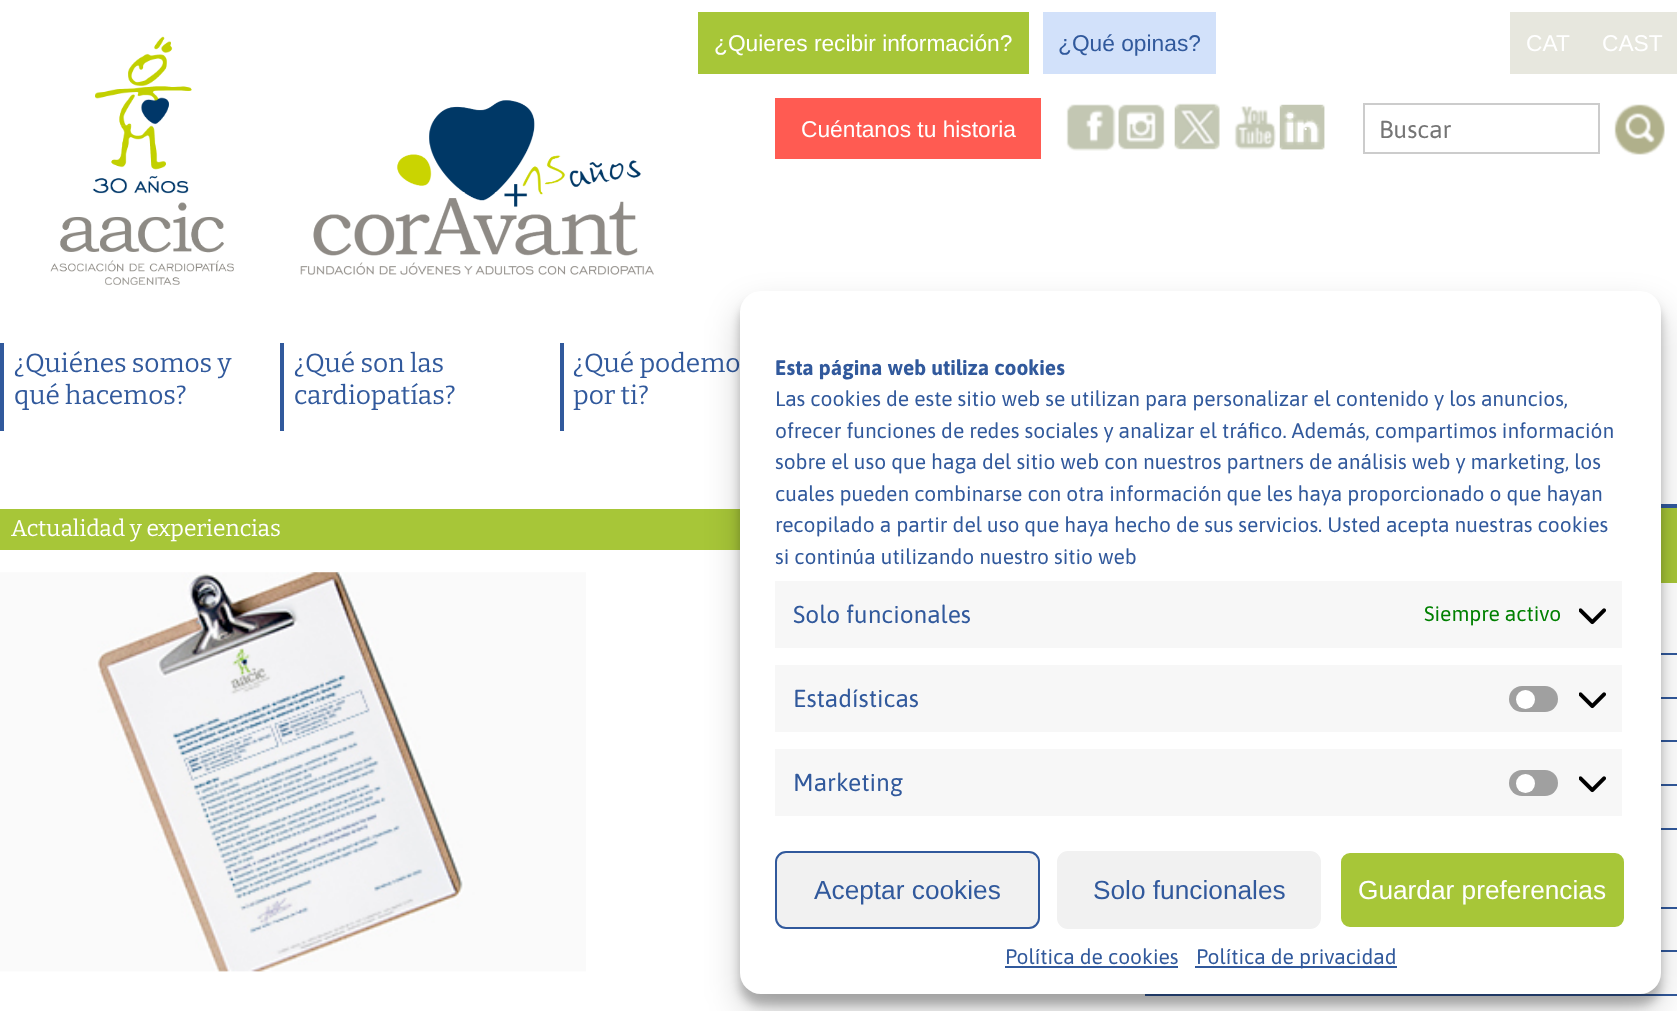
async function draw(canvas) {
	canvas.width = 1677;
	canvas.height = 1011;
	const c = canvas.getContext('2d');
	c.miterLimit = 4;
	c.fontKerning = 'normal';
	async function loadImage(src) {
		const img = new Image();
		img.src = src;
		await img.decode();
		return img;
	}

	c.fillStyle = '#fff';
	c.fillRect(0, 0, 1677, 1011);
	c.drawImage(await loadImage('img1.png'), 50, 36, 184, 249);
	c.drawImage(await loadImage('img2.png'), 300, 100, 354, 175);
	c.fillStyle = '#a7c638';
	c.fillRect(698, 12, 331, 62);
	c.font = '22.75px Liberation Sans';
	c.fillStyle = '#fff';
	c.fillText('¿Quieres recibir información?', 714, 51);
	c.fillStyle = '#d2e1fa';
	c.fillRect(1043, 12, 173, 62);
	c.fillStyle = '#31599c';
	c.fillText('¿Qué opinas?', 1058, 51);
	c.fillStyle = '#e7e7de';
	c.fillRect(1510, 12, 167, 62);
	c.fillStyle = '#fff';
	c.fillText('CAT', 1526, 51);
	c.fillText('CAST', 1602, 51);
	c.fillStyle = '#ff5b52';
	c.fillRect(775, 98, 266, 61);
	c.fillStyle = '#fff';
	c.fillText('Cuéntanos tu historia', 801, 137);
	c.drawImage(await loadImage('img3.png'), 1066, 104, 50, 47);
	c.drawImage(await loadImage('img4.png'), 1118, 104, 47, 46);
	c.drawImage(await loadImage('img5.png'), 1174, 103, 46, 47);
	c.drawImage(await loadImage('img6.png'), 1234, 106, 42, 44);
	c.drawImage(await loadImage('img7.png'), 1279, 104, 46, 46);
	c.font = '19px Liberation Sans';
	c.fillText('.', 1303, 130);
	c.strokeStyle = '#ccc';
	c.lineWidth = 2;
	c.strokeRect(1364, 104, 235, 49);
	c.font = '24.5px Asap';
	c.fillStyle = '#757575';
	c.fillText('Buscar', 1379, 138);
	c.drawImage(await loadImage('img8.png'), 1614, 104, 51, 51);
	c.fillStyle = '#31599c';
	c.fillRect(0, 343, 4, 88);
	c.font = '26.25px Bitter';
	c.fillText('¿Quiénes somos y', 14, 372);
	c.fillText('qué hacemos?', 14, 404);
	c.fillRect(280, 343, 4, 88);
	c.fillText('¿Qué son las', 294, 372);
	c.fillText('cardiopatías?', 294, 404);
	c.fillRect(560, 343, 4, 88);
	c.fillText('¿Qué podemo', 573, 372);
	c.fillText('por ti?', 573, 404);
	c.fillStyle = '#a7c638';
	c.fillRect(0, 509, 740, 41);
	c.font = '22.75px Bitter';
	c.fillStyle = '#fff';
	c.fillText('Actualidad y experiencias', 11, 536);
	c.drawImage(await loadImage('img9.png'), 0, 572, 586, 400);
	for (const [x, y, w, h, color] of [
		[1661, 508, 16, 75, '#a7c638'],
		[1661, 504, 16, 4, '#31599c'],
		[1661, 653, 16, 2, '#31599c'],
		[1661, 697, 16, 2, '#31599c'],
		[1661, 740, 16, 2, '#31599c'],
		[1661, 784, 16, 2, '#31599c'],
		[1661, 828, 16, 2, '#31599c'],
		[1661, 907, 16, 2, '#31599c'],
		[1661, 950, 16, 2, '#31599c'],
		[1145, 994, 532, 2, '#31599c'],
	]) {
		c.fillStyle = color;
		c.fillRect(x, y, w, h);
	}
	c.fillStyle = '#0000003b';
	c.filter = 'blur(5px)';
	c.beginPath();
	c.roundRect(740, 301, 921, 704, 21);
	c.fill();
	c.filter = 'none';
	c.fillStyle = '#00000030';
	c.filter = 'blur(17.5px)';
	c.beginPath();
	c.roundRect(740, 308, 921, 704, 21);
	c.fill();
	c.filter = 'none';
	c.fillStyle = '#fff';
	c.beginPath();
	c.roundRect(740, 291, 921, 703, 21);
	c.fill();
	c.font = 'bold 21px Asap';
	c.fillStyle = '#31599c';
	c.fillText('Esta página web utiliza cookies', 775, 375);
	c.font = '21px Asap';
	for (const [text, x, y] of [
		['Las cookies de este sitio web se utilizan para personalizar el contenido y los anuncios,', 775, 406],
		['ofrecer funciones de redes sociales y analizar el tráfico. Además, compartimos información', 775, 438],
		['sobre el uso que haga del sitio web con nuestros partners de análisis web y marketing, los', 775, 469],
		['cuales pueden combinarse con otra información que les haya proporcionado o que hayan', 775, 501],
		['recopilado a partir del uso que haya hecho de sus servicios. Usted acepta nuestras cookies', 775, 532],
		['si continúa utilizando nuestro sitio web', 775, 564],
	]) {
		c.fillText(text, x, y);
	}
	c.fillStyle = '#f7f7f7';
	c.fillRect(775, 581, 847, 67);
	c.font = '24.5px Asap';
	c.fillStyle = '#31599c';
	c.fillText('Solo funcionales', 793, 623);
	c.font = '21px Asap';
	c.fillStyle = '#008000';
	c.fillText('Siempre activo', 1424, 621);
	c.drawImage(await loadImage('img10.png'), 1579, 608, 27, 17);
	c.fillStyle = '#f7f7f7';
	c.fillRect(775, 665, 847, 67);
	c.font = '24.5px Asap';
	c.fillStyle = '#31599c';
	c.fillText('Estadísticas', 793, 707);
	c.fillStyle = '#a0a0a0';
	c.beginPath();
	c.roundRect(1509, 686, 49, 26, 13);
	c.fill();
	c.fillStyle = '#fff';
	c.beginPath();
	c.arc(1525.5, 699.5, 9.5, 0, 2 * Math.PI);
	c.fill();
	c.drawImage(await loadImage('img10.png'), 1579, 692, 27, 17);
	c.fillStyle = '#f7f7f7';
	c.fillRect(775, 749, 847, 67);
	c.fillStyle = '#31599c';
	c.fillText('Marketing', 793, 791);
	c.fillStyle = '#a0a0a0';
	c.beginPath();
	c.roundRect(1509, 770, 49, 26, 13);
	c.fill();
	c.fillStyle = '#fff';
	c.beginPath();
	c.arc(1525.5, 783.5, 9.5, 0, 2 * Math.PI);
	c.fill();
	c.drawImage(await loadImage('img10.png'), 1579, 776, 27, 17);
	c.fillStyle = '#f1f1f1';
	c.beginPath();
	c.roundRect(776, 852, 263, 76, 10);
	c.fill();
	c.strokeStyle = '#31599c';
	c.stroke();
	c.font = '26.25px Liberation Sans';
	c.fillStyle = '#31599c';
	c.fillText('Aceptar cookies', 814, 899);
	c.fillStyle = '#f1f1f1';
	c.beginPath();
	c.roundRect(1058, 852, 262, 76, 10);
	c.fill();
	c.strokeStyle = '#f1f1f1';
	c.stroke();
	c.fillStyle = '#31599c';
	c.fillText('Solo funcionales', 1093, 899);
	c.fillStyle = '#a7c638';
	c.beginPath();
	c.roundRect(1340, 852, 285, 76, 10);
	c.fill();
	c.strokeStyle = '#fff';
	c.stroke();
	c.fillStyle = '#fff';
	c.fillText('Guardar preferencias', 1358, 899);
	c.font = '21px Asap';
	c.fillStyle = '#31599c';
	c.fillText('Política de cookies', 1005, 964);
	c.fillRect(1005, 966, 173, 2);
	c.fillRect(1195, 966, 202, 2);
	c.fillText('Política de privacidad', 1196, 964);
}

draw(document.querySelector('canvas'));
